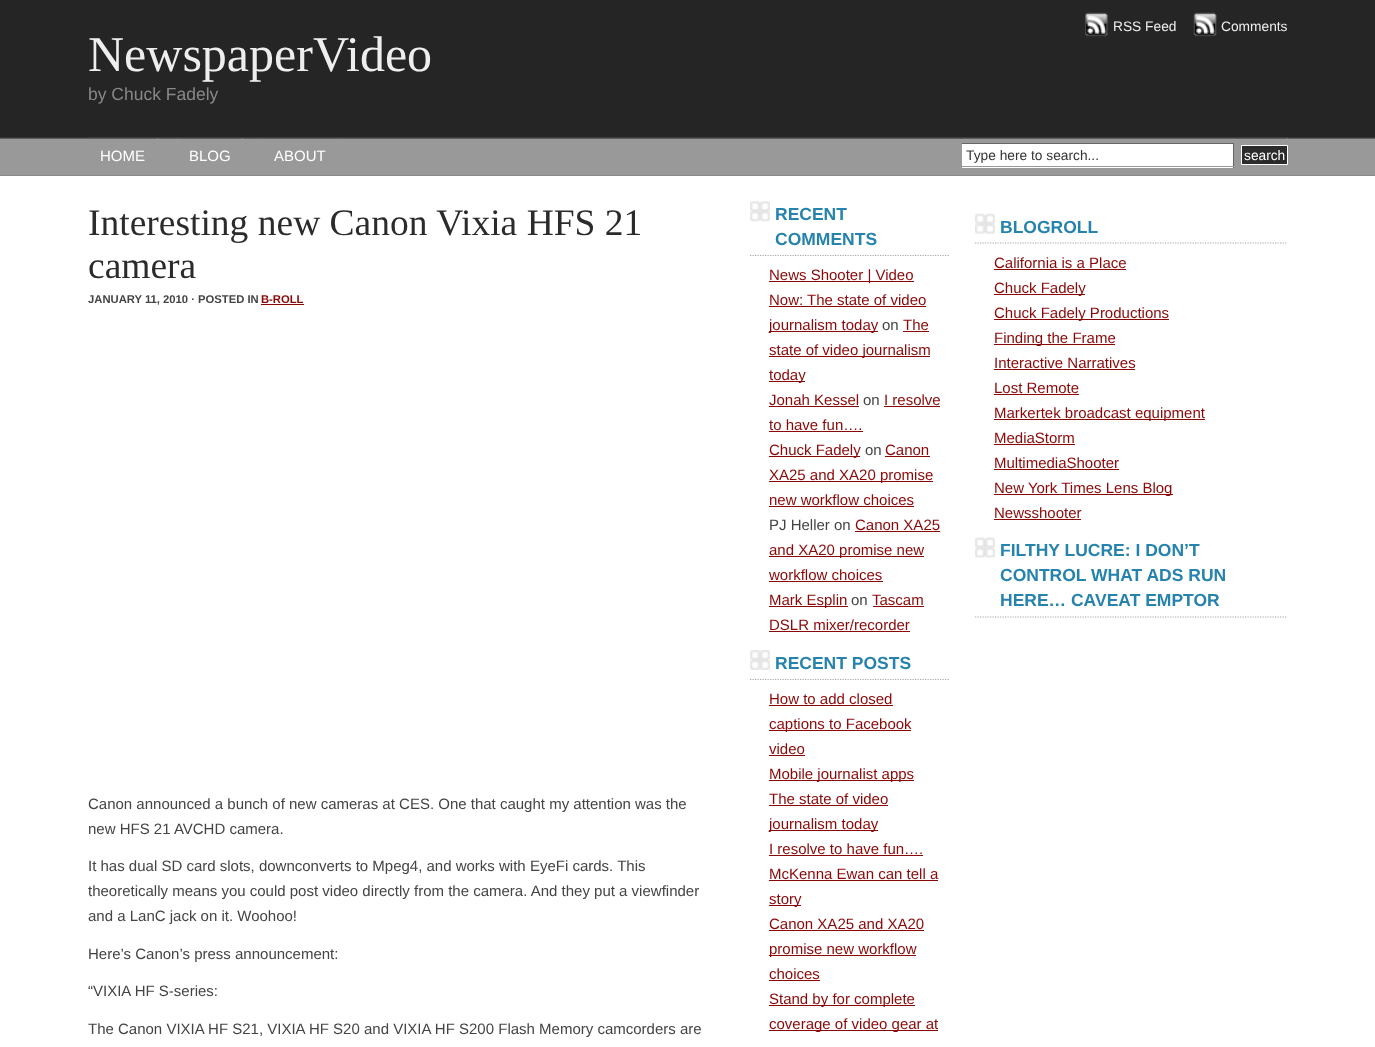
async function draw(canvas) {
	canvas.width = 1375;
	canvas.height = 1047;
	const c = canvas.getContext('2d');
	c.miterLimit = 4;
	c.fontKerning = 'normal';
	async function loadImage(src) {
		const img = new Image();
		img.src = src;
		await img.decode();
		return img;
	}

	c.fillStyle = '#fff';
	c.fillRect(0, 0, 1375, 1047);
	c.drawImage(await loadImage('img1.png'), 0, 0, 1375, 176);
	c.drawImage(await loadImage('img2.png'), 1085, 12, 23, 25);
	c.font = '13.75px Liberation Sans';
	c.fillStyle = '#eee';
	c.fillText('RSS Feed', 1113, 31);
	c.drawImage(await loadImage('img3.png'), 1193, 12, 24, 25);
	c.fillText('Comments', 1221, 31);
	c.font = '50px Liberation Serif';
	c.fillText('NewspaperVideo', 88, 71);
	c.font = '17.5px Liberation Sans';
	c.fillStyle = '#888';
	c.fillText('by Chuck Fadely', 88, 100);
	c.fillStyle = '#999';
	c.fillRect(1287, 138, 1, 38);
	c.drawImage(await loadImage('img4.png'), 87, 137, 1201, 39);
	c.fillRect(88, 138, 70, 1);
	c.drawImage(await loadImage('img5.png'), 88, 138, 70, 1);
	c.font = '15px Liberation Sans';
	c.fillStyle = '#fff';
	c.fillText('HOME', 100, 161);
	c.fillStyle = '#999';
	c.fillRect(176, 138, 67, 1);
	c.drawImage(await loadImage('img6.png'), 176, 138, 67, 1);
	c.fillStyle = '#fff';
	c.fillText('BLOG', 189, 161);
	c.fillStyle = '#999';
	c.fillRect(261, 138, 78, 1);
	c.drawImage(await loadImage('img7.png'), 261, 138, 78, 1);
	c.fillStyle = '#fff';
	c.fillText('ABOUT', 274, 161);
	for (const [x, y, w, h, color] of [
		[962, 144, 271, 24, '#fff'],
		[961, 143, 273, 1, '#666'],
		[1233, 143, 1, 25, '#666'],
		[961, 166, 273, 1, '#999'],
		[961, 143, 1, 1, '#999'],
	]) {
		c.fillStyle = color;
		c.fillRect(x, y, w, h);
	}
	c.font = '13.75px Liberation Sans';
	c.fillStyle = '#333';
	c.fillText('Type here to search...', 966, 160);
	c.fillStyle = '#2b2b2b';
	c.beginPath();
	c.rect(1241.5, 145.5, 46, 19);
	c.fill();
	c.strokeStyle = '#fff';
	c.stroke();
	c.fillStyle = '#fff';
	c.fillText('search', 1244, 160);
	c.font = '37.5px Liberation Serif';
	c.fillStyle = '#2b2b2b';
	c.fillText('Interesting new Canon Vixia HFS 21', 88, 235);
	c.fillText('camera', 88, 278);
	c.font = 'bold 11.25px Liberation Sans';
	c.fillStyle = '#444';
	c.fillText('JANUARY 11, 2010 · POSTED IN', 88, 303);
	c.fillStyle = '#8a0808';
	c.fillText('B-ROLL', 261, 303);
	c.fillRect(261, 304, 43, 1);
	c.font = '15px Liberation Sans';
	c.fillStyle = '#444';
	for (const [text, x, y] of [
		['Canon announced a bunch of new cameras at CES. One that caught my attention was the', 88, 809],
		['new HFS 21 AVCHD camera.', 88, 834],
		['It has dual SD card slots, downconverts to Mpeg4, and works with EyeFi cards. This', 88, 871],
		['theoretically means you could post video directly from the camera. And they put a viewfinder', 88, 896],
		['and a LanC jack on it. Woohoo!', 88, 921],
		['Here’s Canon’s press announcement:', 88, 959],
		['“VIXIA HF S-series:', 88, 996],
		['The Canon VIXIA HF S21, VIXIA HF S20 and VIXIA HF S200 Flash Memory camcorders are', 88, 1034],
	]) {
		c.fillText(text, x, y);
	}
	c.drawImage(await loadImage('img8.png'), 750, 201, 20, 21);
	c.beginPath();
	c.moveTo(750, 255.5);
	c.lineTo(950, 255.5);
	c.strokeStyle = '#aaa';
	c.lineWidth = 1.2;
	c.setLineDash([1.25, 1.25]);
	c.stroke();
	c.font = 'bold 17.5px Liberation Sans';
	c.fillStyle = '#2583ad';
	c.fillText('RECENT', 775, 220);
	c.fillText('COMMENTS', 775, 245);
	c.fillStyle = '#8a0808';
	c.fillRect(769, 281, 145, 1);
	c.font = '15px Liberation Sans';
	c.fillText('News Shooter | Video', 769, 280);
	c.fillText('Now: The state of video', 769, 305);
	c.fillRect(769, 306, 157, 1);
	c.fillRect(769, 331, 109, 1);
	c.fillText('journalism today', 769, 330);
	c.fillStyle = '#444';
	c.fillText('on', 882, 330);
	c.fillStyle = '#8a0808';
	c.fillText('The', 903, 330);
	c.fillRect(903, 331, 26, 1);
	c.fillRect(769, 356, 161, 1);
	c.fillText('state of video journalism', 769, 355);
	c.fillRect(769, 381, 36, 1);
	c.fillText('today', 769, 380);
	c.fillText('Jonah Kessel', 769, 405);
	c.fillRect(769, 406, 90, 1);
	c.fillStyle = '#444';
	c.fillText('on', 863, 405);
	c.fillStyle = '#8a0808';
	c.fillText('I resolve', 884, 405);
	c.fillRect(884, 406, 56, 1);
	c.fillText('to have fun….', 769, 430);
	c.fillRect(769, 431, 94, 1);
	c.fillRect(769, 456, 91, 1);
	c.fillText('Chuck Fadely', 769, 455);
	c.fillStyle = '#444';
	c.fillText('on', 865, 455);
	c.fillStyle = '#8a0808';
	c.fillText('Canon', 885, 455);
	c.fillRect(885, 456, 45, 1);
	c.fillRect(769, 481, 164, 1);
	c.fillText('XA25 and XA20 promise', 769, 480);
	c.fillText('new workflow choices', 769, 505);
	c.fillRect(769, 506, 145, 1);
	c.fillStyle = '#444';
	c.fillText('PJ Heller on', 769, 530);
	c.fillStyle = '#8a0808';
	c.fillText('Canon XA25', 855, 530);
	c.fillRect(855, 531, 85, 1);
	c.fillRect(769, 556, 155, 1);
	c.fillText('and XA20 promise new', 769, 555);
	c.fillText('workflow choices', 769, 580);
	c.fillRect(769, 581, 114, 1);
	c.fillRect(769, 606, 79, 1);
	c.fillText('Mark Esplin', 769, 605);
	c.fillStyle = '#444';
	c.fillText('on', 851, 605);
	c.fillStyle = '#8a0808';
	c.fillText('Tascam', 872, 605);
	c.fillRect(873, 606, 51, 1);
	c.fillText('DSLR mixer/recorder', 769, 630);
	c.fillRect(769, 631, 141, 1);
	c.drawImage(await loadImage('img9.png'), 750, 650, 20, 20);
	c.beginPath();
	c.moveTo(750, 679.5);
	c.lineTo(950, 679.5);
	c.stroke();
	c.font = 'bold 17.5px Liberation Sans';
	c.fillStyle = '#2583ad';
	c.fillText('RECENT POSTS', 775, 669);
	c.font = '15px Liberation Sans';
	c.fillStyle = '#8a0808';
	c.fillText('How to add closed', 769, 704);
	c.fillRect(769, 705, 124, 1);
	c.fillRect(769, 730, 142, 1);
	c.fillText('captions to Facebook', 769, 729);
	c.fillText('video', 769, 754);
	c.fillRect(769, 755, 36, 1);
	c.fillRect(769, 780, 145, 1);
	c.fillText('Mobile journalist apps', 769, 779);
	c.fillText('The state of video', 769, 804);
	c.fillRect(769, 805, 119, 1);
	c.fillRect(769, 830, 109, 1);
	c.fillText('journalism today', 769, 829);
	c.fillText('I resolve to have fun….', 769, 854);
	c.fillRect(769, 855, 154, 1);
	c.fillText('McKenna Ewan can tell a', 769, 879);
	c.fillRect(769, 880, 169, 1);
	c.fillRect(769, 905, 32, 1);
	c.fillText('story', 769, 904);
	c.fillText('Canon XA25 and XA20', 769, 929);
	c.fillRect(769, 930, 155, 1);
	c.fillRect(769, 955, 147, 1);
	c.fillText('promise new workflow', 769, 954);
	c.fillText('choices', 769, 979);
	c.fillRect(769, 980, 51, 1);
	c.fillRect(769, 1005, 146, 1);
	c.fillText('Stand by for complete', 769, 1004);
	c.fillRect(769, 1030, 169, 1);
	c.fillText('coverage of video gear at', 769, 1029);
	c.drawImage(await loadImage('img10.png'), 975, 213, 20, 21);
	c.beginPath();
	c.moveTo(975, 243);
	c.lineTo(1287.5, 243);
	c.stroke();
	c.font = 'bold 17.5px Liberation Sans';
	c.fillStyle = '#2583ad';
	c.fillText('BLOGROLL', 1000, 233);
	c.font = '15px Liberation Sans';
	c.fillStyle = '#8a0808';
	c.fillText('California is a Place', 994, 268);
	c.fillRect(994, 269, 132, 1);
	c.fillRect(994, 294, 91, 1);
	c.fillText('Chuck Fadely', 994, 293);
	c.fillRect(994, 319, 175, 1);
	c.fillText('Chuck Fadely Productions', 994, 318);
	c.fillRect(994, 344, 121, 1);
	c.fillText('Finding the Frame', 994, 343);
	c.fillText('Interactive Narratives', 994, 368);
	c.fillRect(994, 369, 141, 1);
	c.fillText('Lost Remote', 994, 393);
	c.fillRect(994, 394, 85, 1);
	c.fillRect(994, 419, 211, 1);
	c.fillText('Markertek broadcast equipment', 994, 418);
	c.fillText('MediaStorm', 994, 443);
	c.fillRect(994, 444, 81, 1);
	c.fillText('MultimediaShooter', 994, 468);
	c.fillRect(994, 469, 125, 1);
	c.fillRect(994, 494, 179, 1);
	c.fillText('New York Times Lens Blog', 994, 493);
	c.fillText('Newsshooter', 994, 518);
	c.fillRect(994, 519, 87, 1);
	c.drawImage(await loadImage('img11.png'), 975, 537, 20, 21);
	c.beginPath();
	c.moveTo(975, 617);
	c.lineTo(1287.5, 617);
	c.stroke();
	c.font = 'bold 17.5px Liberation Sans';
	c.fillStyle = '#2583ad';
	for (const [text, x, y] of [
		['FILTHY LUCRE: I DON’T', 1000, 556],
		['CONTROL WHAT ADS RUN', 1000, 581],
		['HERE… CAVEAT EMPTOR', 1000, 606],
	]) {
		c.fillText(text, x, y);
	}
}

draw(document.querySelector('canvas'));
